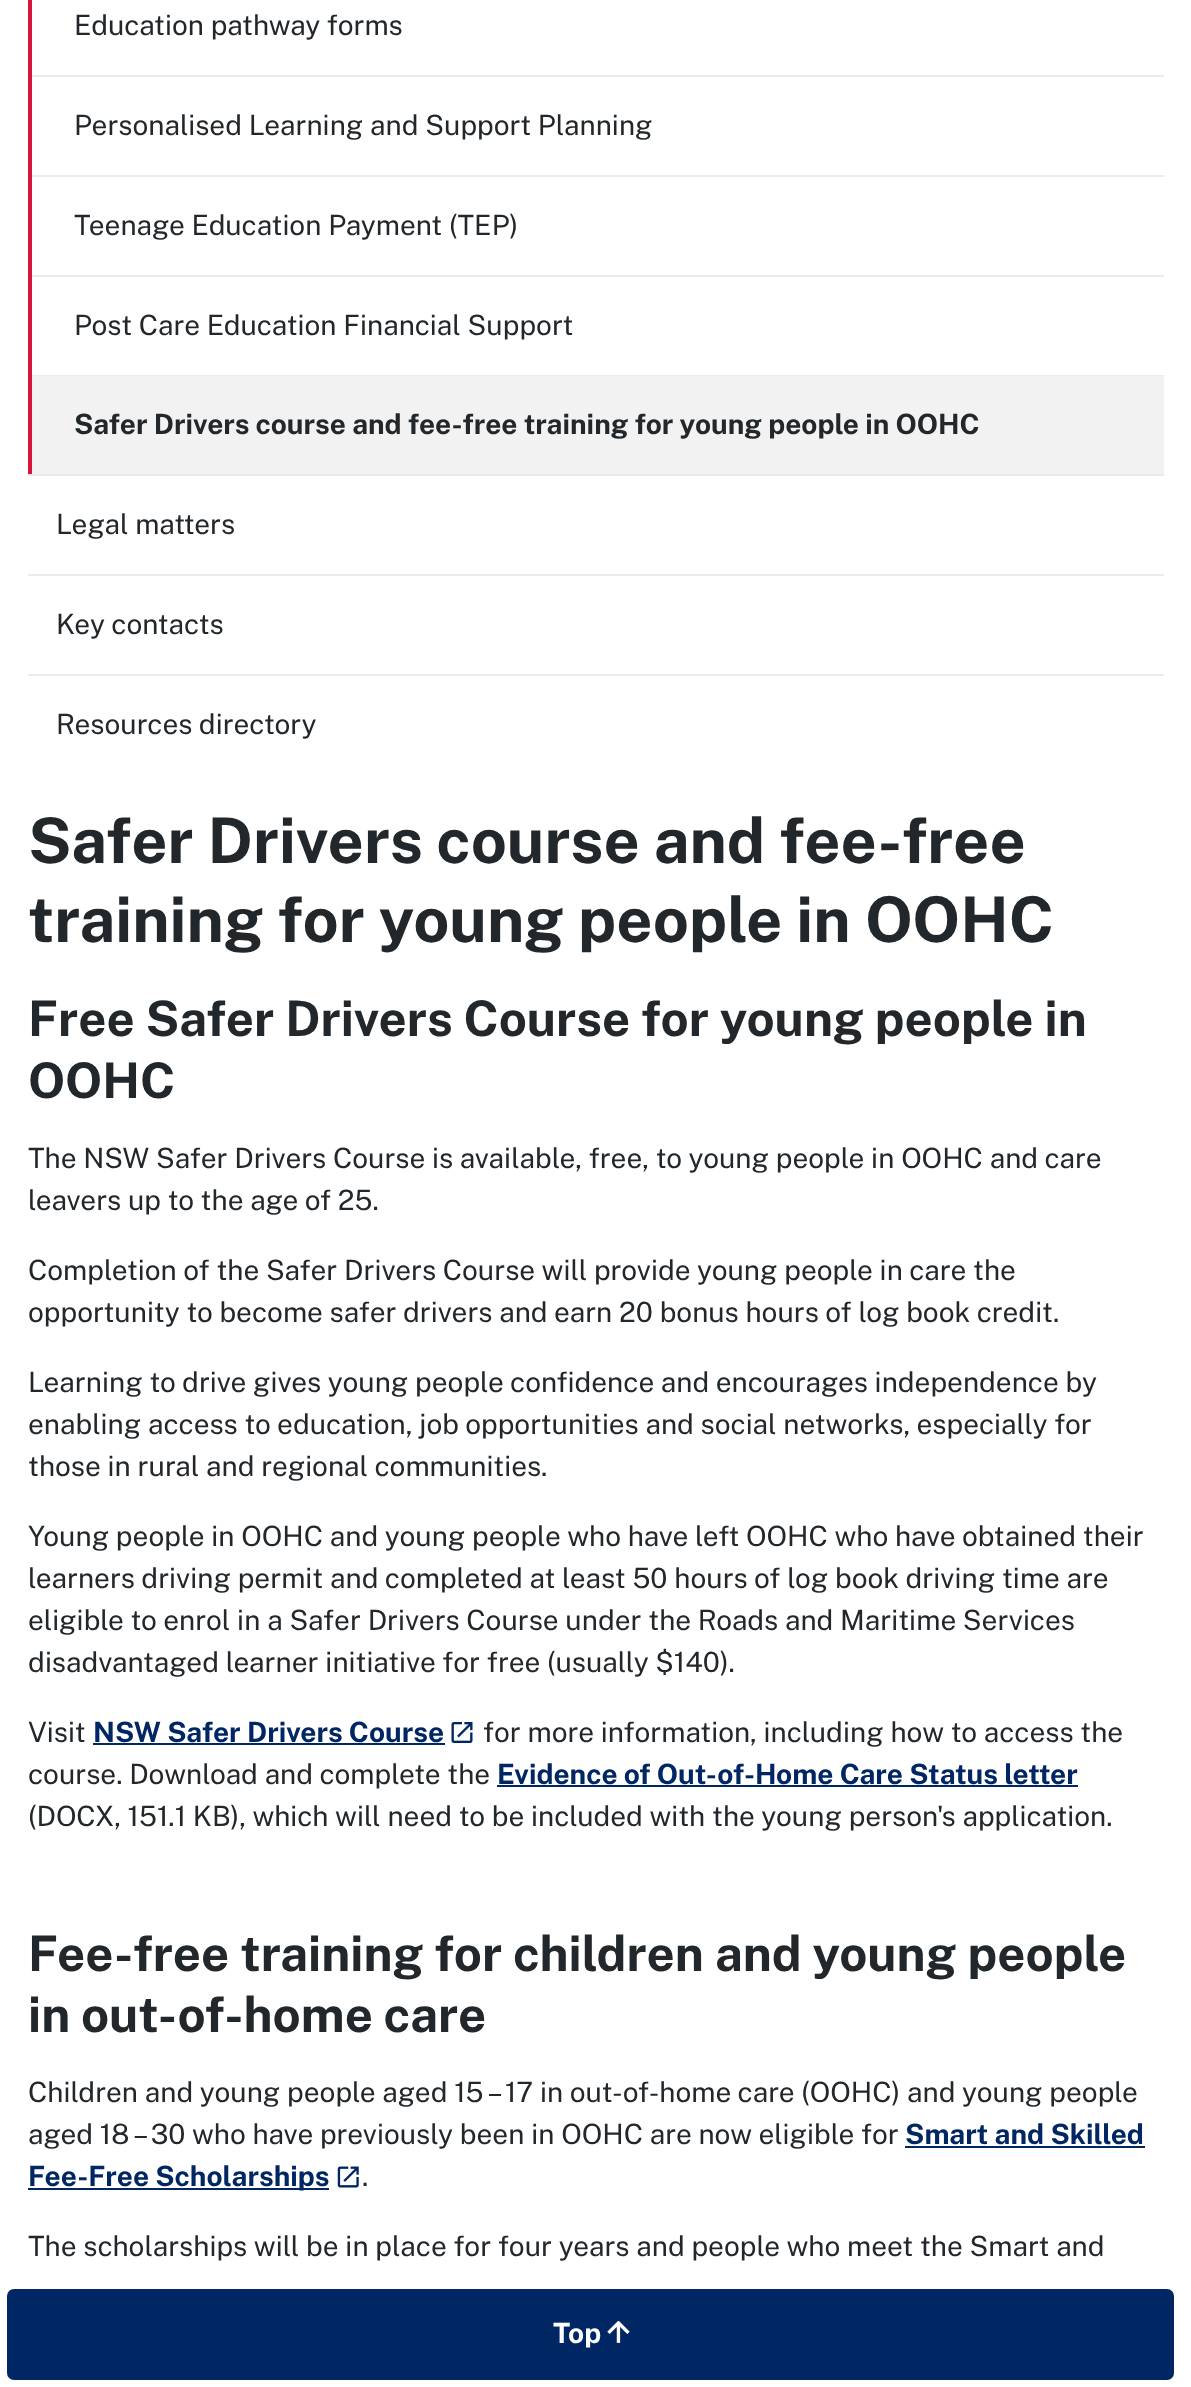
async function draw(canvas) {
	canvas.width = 1191;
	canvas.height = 2387;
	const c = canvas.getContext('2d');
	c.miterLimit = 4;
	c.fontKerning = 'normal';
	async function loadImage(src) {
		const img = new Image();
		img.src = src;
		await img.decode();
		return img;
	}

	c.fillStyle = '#fff';
	c.fillRect(0, 0, 1191, 2387);
	c.fillStyle = '#d7153a';
	c.beginPath();
	c.moveTo(28, 474);
	c.lineTo(28, -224);
	c.lineTo(32, -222);
	c.lineTo(32, 474);
	c.closePath();
	c.fill();
	c.font = '28px Public Sans';
	c.fillStyle = '#22272b';
	c.fillText('Education pathway forms', 74, 35);
	c.fillStyle = '#ebebeb';
	c.fillRect(32, 75, 1132, 2);
	c.fillStyle = '#22272b';
	c.fillText('Personalised Learning and Support Planning', 74, 135);
	c.fillStyle = '#ebebeb';
	c.fillRect(32, 175, 1132, 2);
	c.fillStyle = '#22272b';
	c.fillText('Teenage Education Payment (TEP)', 74, 235);
	c.fillStyle = '#ebebeb';
	c.fillRect(32, 275, 1132, 2);
	c.fillStyle = '#22272b';
	c.fillText('Post Care Education Financial Support', 74, 335);
	c.fillStyle = '#ebebeb';
	c.fillRect(32, 375, 1132, 1);
	c.fillStyle = '#f2f2f2';
	c.fillRect(32, 376, 1132, 98);
	c.font = 'bold 28px Public Sans';
	c.fillStyle = '#22272b';
	c.fillText('Safer Drivers course and fee-free training for young people in OOHC', 74, 434);
	c.fillStyle = '#ebebeb';
	c.fillRect(28, 474, 1136, 2);
	c.font = '28px Public Sans';
	c.fillStyle = '#22272b';
	c.fillText('Legal matters', 56, 534);
	c.fillStyle = '#ebebeb';
	c.fillRect(28, 574, 1136, 2);
	c.fillStyle = '#22272b';
	c.fillText('Key contacts', 56, 634);
	c.fillStyle = '#ebebeb';
	c.fillRect(28, 674, 1136, 2);
	c.fillStyle = '#22272b';
	c.fillText('Resources directory', 56, 734);
	c.font = 'bold 63px Public Sans';
	c.fillText('Safer Drivers course and fee-free', 28, 863);
	c.fillText('training for young people in OOHC', 28, 942);
	c.font = 'bold 49px Public Sans';
	c.fillText('Free Safer Drivers Course for young people in', 28, 1036);
	c.fillText('OOHC', 28, 1098);
	c.font = '28px Public Sans';
	for (const [text, x, y] of [
		['The NSW Safer Drivers Course is available, free, to young people in OOHC and care', 28, 1168],
		['leavers up to the age of 25.', 28, 1210],
		['Completion of the Safer Drivers Course will provide young people in care the', 28, 1280],
		['opportunity to become safer drivers and earn 20 bonus hours of log book credit.', 28, 1322],
		['Learning to drive gives young people confidence and encourages independence by', 28, 1392],
		['enabling access to education, job opportunities and social networks, especially for', 28, 1434],
		['those in rural and regional communities.', 28, 1476],
		['Young people in OOHC and young people who have left OOHC who have obtained their', 28, 1546],
		['learners driving permit and completed at least 50 hours of log book driving time are', 28, 1588],
		['eligible to enrol in a Safer Drivers Course under the Roads and Maritime Services', 28, 1630],
		['disadvantaged learner initiative for free (usually $140).', 28, 1672],
		['Visit', 28, 1742],
	]) {
		c.fillText(text, x, y);
	}
	c.font = 'bold 28px Public Sans';
	c.fillStyle = '#002664';
	c.fillText('NSW Safer Drivers Course', 93, 1742);
	c.fillRect(93, 1743, 352, 2);
	c.drawImage(await loadImage('img1.png'), 451, 1722, 22, 21);
	c.font = '28px Public Sans';
	c.fillStyle = '#22272b';
	c.fillText('for more information, including how to access the', 483, 1742);
	c.fillText('course. Download and complete the', 28, 1784);
	c.font = 'bold 28px Public Sans';
	c.fillStyle = '#002664';
	c.fillText('Evidence of Out-of-Home Care Status letter', 497, 1784);
	c.fillRect(497, 1785, 581, 2);
	c.font = '28px Public Sans';
	c.fillStyle = '#22272b';
	c.fillText('(DOCX, 151.1 KB), which will need to be included with the young person\'s application.', 28, 1826);
	c.font = 'bold 49px Public Sans';
	c.fillText('Fee-free training for children and young people', 28, 1971);
	c.fillText('in out-of-home care', 28, 2032);
	c.font = '28px Public Sans';
	c.fillText('Children and young people aged 15 – 17 in out-of-home care (OOHC) and young people', 28, 2102);
	c.fillText('aged 18 – 30 who have previously been in OOHC are now eligible for', 28, 2144);
	c.font = 'bold 28px Public Sans';
	c.fillStyle = '#002664';
	c.fillText('Smart and Skilled', 905, 2144);
	c.fillRect(905, 2146, 240, 2);
	c.fillRect(28, 2188, 301, 2);
	c.fillText('Fee-Free Scholarships', 28, 2186);
	c.drawImage(await loadImage('img2.png'), 337, 2166, 22, 22);
	c.font = '28px Public Sans';
	c.fillStyle = '#22272b';
	c.fillText('.', 362, 2186);
	c.fillText('The scholarships will be in place for four years and people who meet the Smart and', 28, 2256);
	c.fillStyle = '#002664';
	c.beginPath();
	c.roundRect(7, 2289, 1167, 91, 7);
	c.fill();
	c.font = 'bold 28px Public Sans';
	c.fillStyle = '#fff';
	c.fillText('Top', 553, 2343);
	c.drawImage(await loadImage('img3.png'), 607, 2321, 23, 22);
}

draw(document.querySelector('canvas'));
